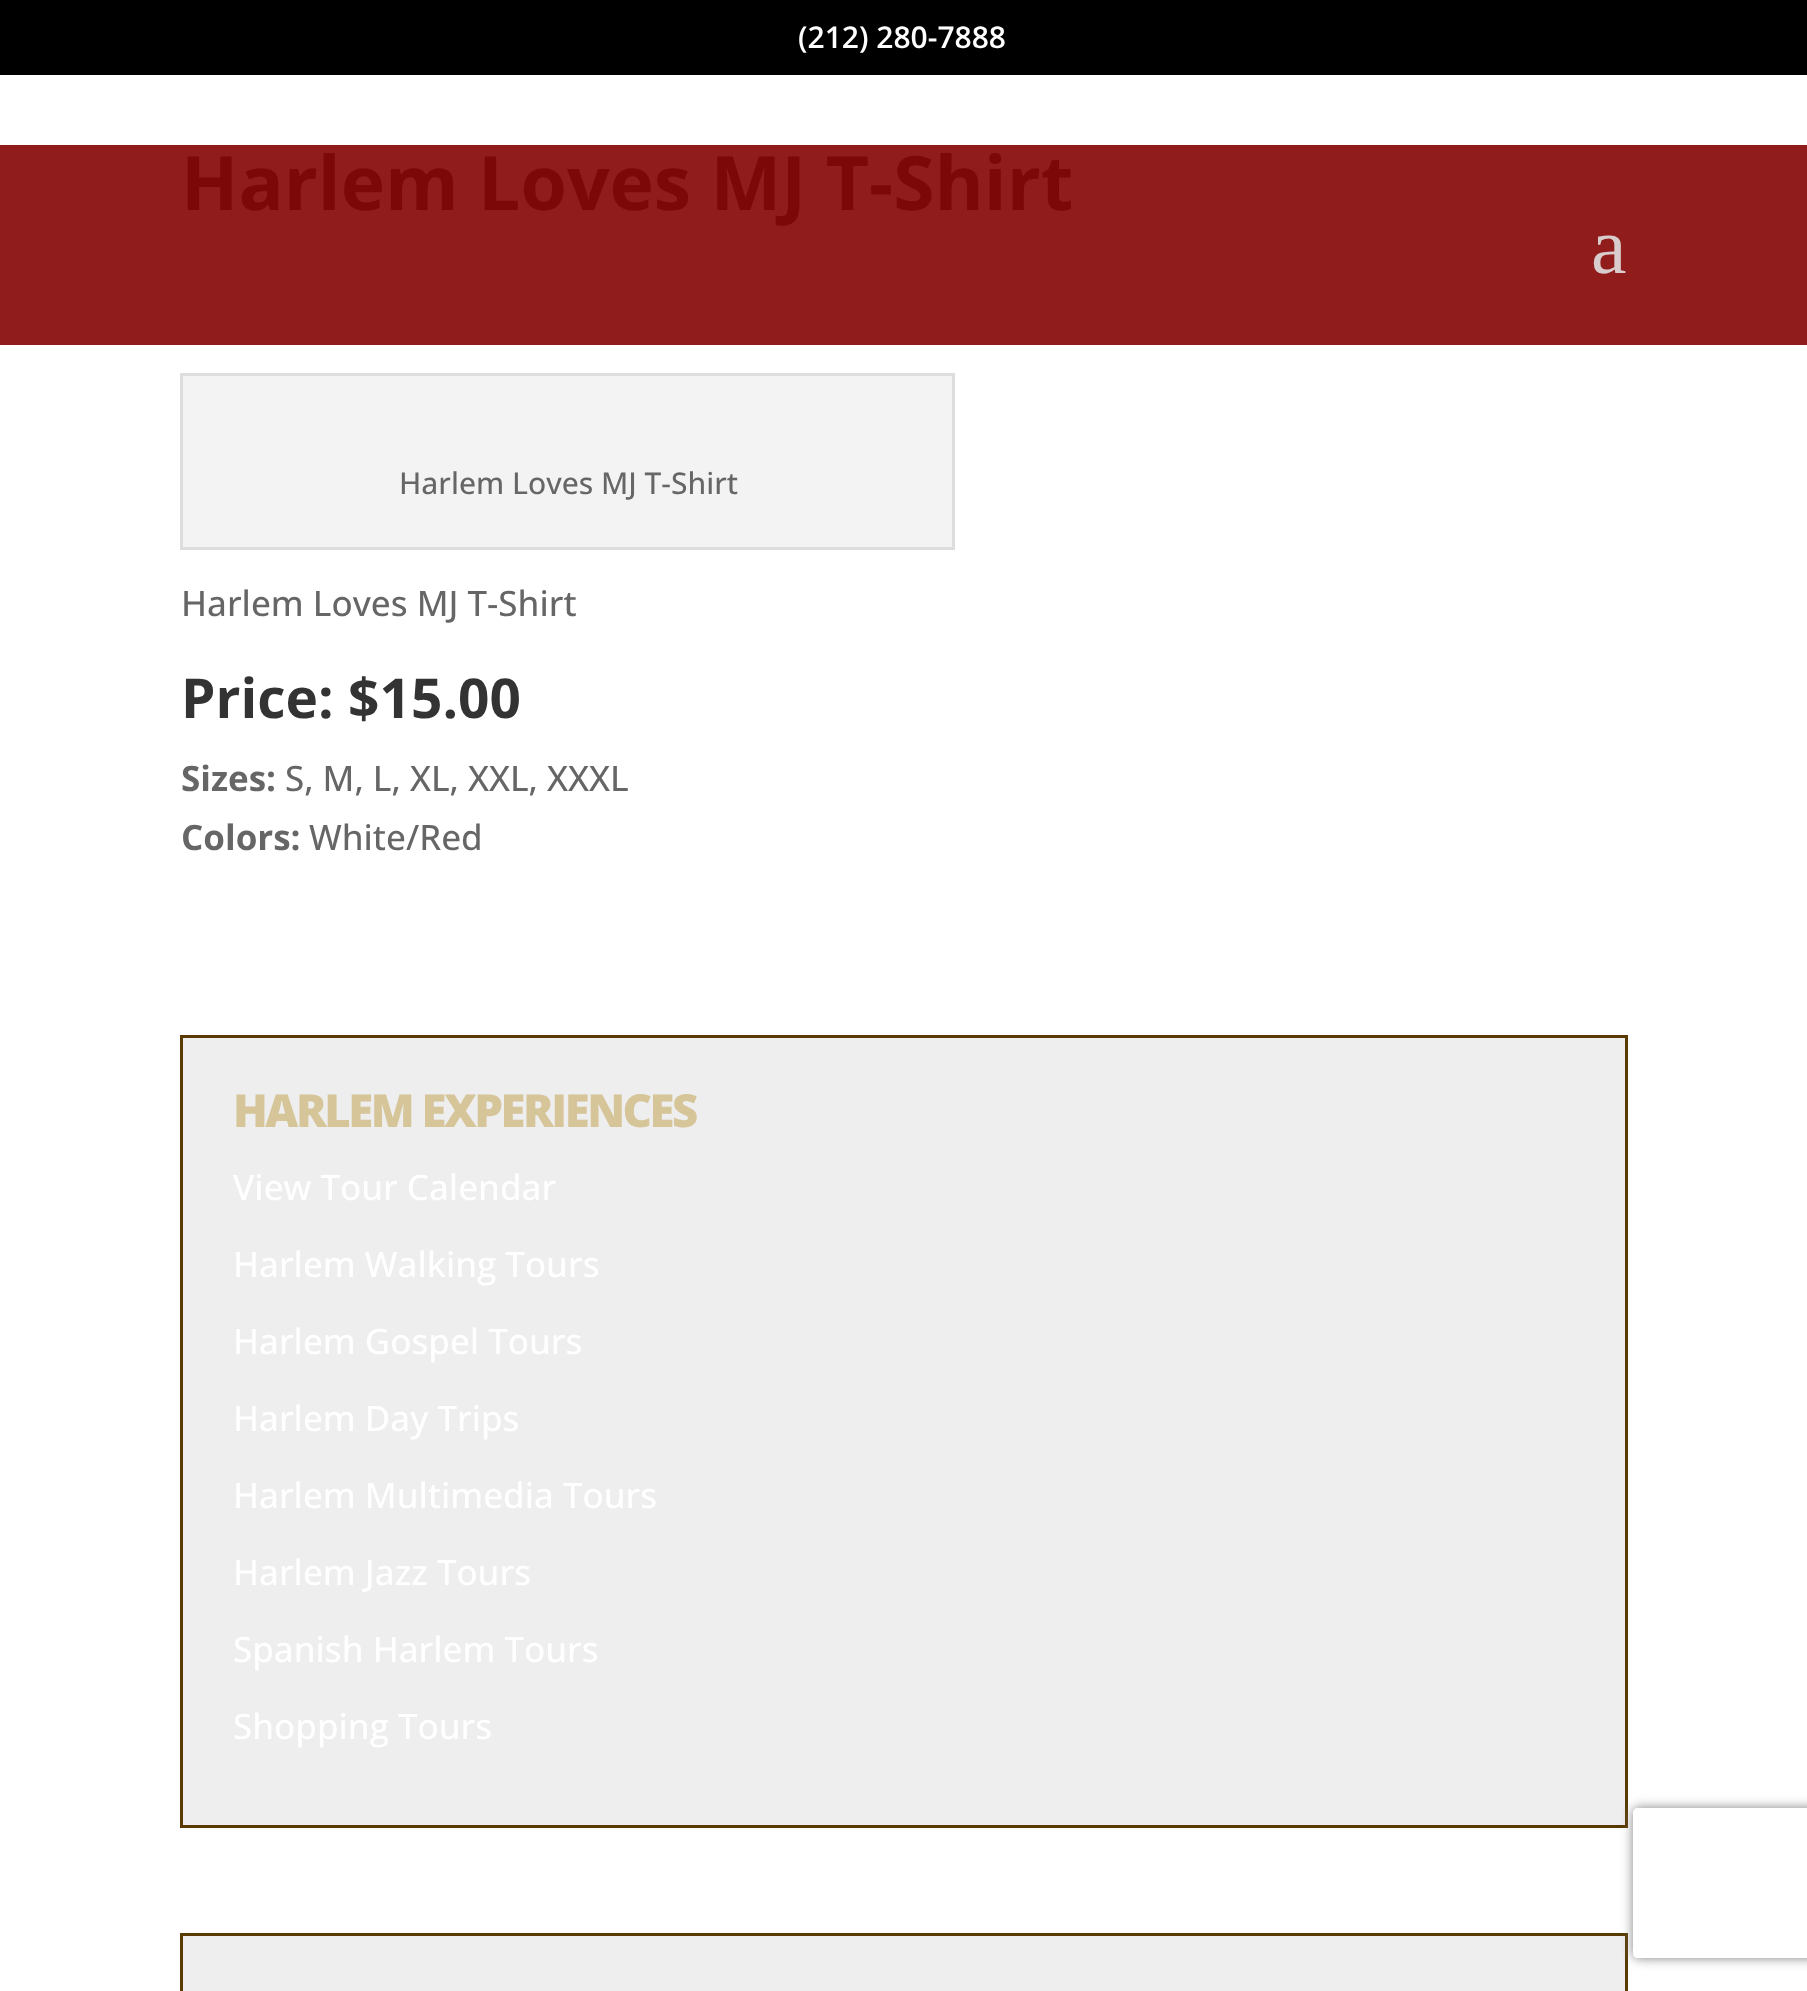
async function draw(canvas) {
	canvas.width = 1807;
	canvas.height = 1991;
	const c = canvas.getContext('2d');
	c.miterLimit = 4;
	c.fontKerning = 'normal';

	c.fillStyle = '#fff';
	c.fillRect(0, 0, 1807, 1991);
	c.fillStyle = '#000';
	c.fillRect(0, 0, 1807, 75);
	c.font = '600 30px Open Sans';
	c.fillStyle = '#fff';
	c.fillText('(212) 280-7888', 798, 48);
	c.fillStyle = '#911c1c';
	c.fillRect(0, 145, 1807, 200);
	c.font = 'bold 75px Open Sans';
	c.fillStyle = '#7d0808';
	c.fillText('Harlem Loves MJ T-Shirt', 181, 210);
	c.fillStyle = '#f3f3f3';
	c.beginPath();
	c.rect(181.5, 374.5, 772, 174);
	c.fill();
	c.strokeStyle = '#ddd';
	c.lineWidth = 3;
	c.stroke();
	c.font = '500 30px Open Sans';
	c.fillStyle = '#666';
	c.fillText('Harlem Loves MJ T-Shirt', 399, 494);
	c.font = '500 35px Open Sans';
	c.fillText('Harlem Loves MJ T-Shirt', 181, 616);
	c.font = 'bold 55px Open Sans';
	c.fillStyle = '#333';
	c.fillText('Price: $15.00', 181, 718);
	c.font = 'bold 35px Open Sans';
	c.fillStyle = '#666';
	c.fillText('Sizes:', 181, 791);
	c.font = '500 35px Open Sans';
	c.fillText('S, M, L, XL, XXL, XXXL', 285, 791);
	c.font = 'bold 35px Open Sans';
	c.fillText('Colors:', 181, 850);
	c.font = '500 35px Open Sans';
	c.fillText('White/Red', 309, 850);
	c.fillStyle = '#eee';
	c.beginPath();
	c.rect(181.5, 1036.5, 1445, 790);
	c.fill();
	c.strokeStyle = '#593a02';
	c.stroke();
	c.letterSpacing = '-2.5px';
	c.font = '800 45.5px Open Sans';
	c.fillStyle = '#d6c599';
	c.fillText('HARLEM EXPERIENCES', 233, 1127);
	c.letterSpacing = '0px';
	c.font = '500 35px Open Sans';
	c.fillStyle = '#fff';
	for (const [text, x, y] of [
		['View Tour Calendar', 233, 1200],
		['Harlem Walking Tours', 233, 1277],
		['Harlem Gospel Tours', 233, 1354],
		['Harlem Day Trips', 233, 1431],
		['Harlem Multimedia Tours', 233, 1508],
		['Harlem Jazz Tours', 233, 1585],
		['Spanish Harlem Tours', 233, 1662],
		['Shopping Tours', 233, 1739],
	]) {
		c.fillText(text, x, y);
	}
	c.fillStyle = '#eee';
	c.beginPath();
	c.rect(181.5, 1934.5, 1445, 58);
	c.fill();
	c.stroke();
	c.font = '80px Liberation Serif';
	c.fillStyle = '#d9cccc';
	c.fillText('a', 1591, 273);
	c.save();
	c.beginPath();
	c.moveTo(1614, 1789);
	c.lineTo(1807, 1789);
	c.lineTo(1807, 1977);
	c.lineTo(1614, 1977);
	c.closePath();
	c.moveTo(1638, 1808);
	c.lineTo(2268, 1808);
	c.bezierCurveTo(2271, 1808, 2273, 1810, 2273, 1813);
	c.lineTo(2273, 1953);
	c.bezierCurveTo(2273, 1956, 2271, 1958, 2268, 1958);
	c.lineTo(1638, 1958);
	c.bezierCurveTo(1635, 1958, 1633, 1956, 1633, 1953);
	c.lineTo(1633, 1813);
	c.bezierCurveTo(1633, 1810, 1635, 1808, 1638, 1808);
	c.closePath();
	c.clip('evenodd');
	c.fillStyle = '#808080';
	c.filter = 'blur(6px)';
	c.beginPath();
	c.roundRect(1633, 1808, 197, 150, 5);
	c.fill();
	c.filter = 'none';
	c.restore();
}

draw(document.querySelector('canvas'));
